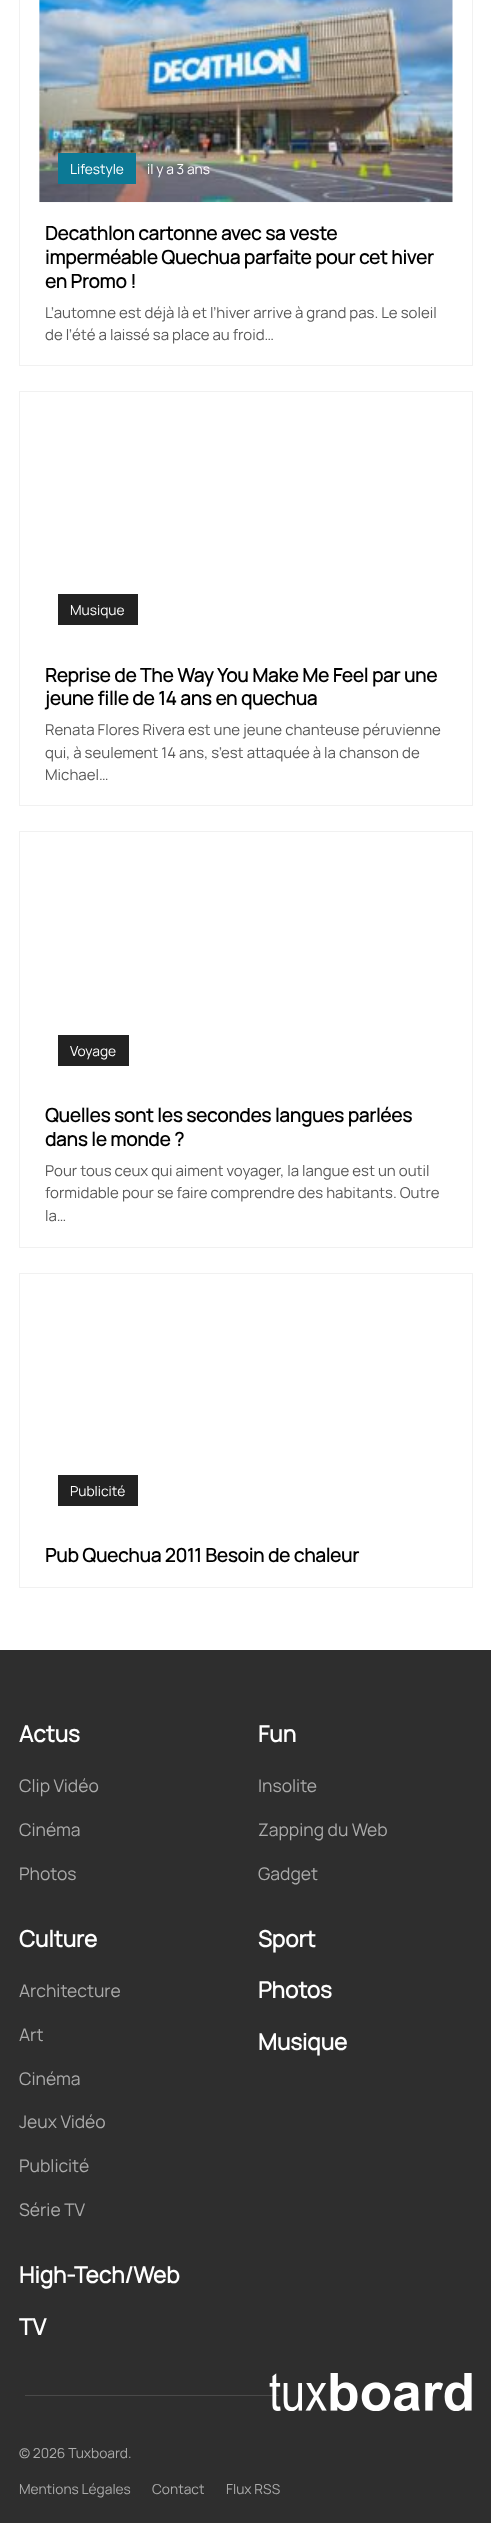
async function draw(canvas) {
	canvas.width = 491;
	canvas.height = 2523;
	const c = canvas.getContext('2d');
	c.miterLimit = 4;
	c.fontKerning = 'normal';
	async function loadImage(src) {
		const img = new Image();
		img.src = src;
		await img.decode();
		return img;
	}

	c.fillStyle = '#fff';
	c.fillRect(0, 0, 491, 2523);
	c.strokeStyle = '#f1f1f1';
	c.strokeRect(19.5, -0.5, 453, 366);
	c.drawImage(await loadImage('img1.png'), 39, 0, 414, 203);
	c.fillStyle = '#0c7995';
	c.fillRect(58, 153, 78, 31);
	c.font = '13.75px Manrope';
	c.fillStyle = '#fff';
	c.fillText('Lifestyle', 70, 174);
	c.fillText('il y a 3 ans', 147, 174);
	c.font = 'bold 18.75px Manrope';
	c.fillStyle = '#000';
	for (const [text, x, y] of [
		['Decathlon cartonne avec sa veste', 45, 240],
		['imperméable Quechua parfaite pour cet hiver', 45, 264],
		['en Promo !', 45, 288],
	]) {
		c.fillText(text, x, y);
	}
	c.font = '15px Manrope';
	c.fillStyle = '#585858';
	c.fillText('L’automne est déjà là et l’hiver arrive à grand pas. Le soleil', 45, 318);
	c.fillText('de l’été a laissé sa place au froid…', 45, 340);
	c.strokeRect(19.5, 391.5, 453, 414);
	c.fillStyle = '#222';
	c.fillRect(58, 594, 80, 31);
	c.font = '13.75px Manrope';
	c.fillStyle = '#fff';
	c.fillText('Musique', 70, 615);
	c.font = 'bold 18.75px Manrope';
	c.fillStyle = '#000';
	c.fillText('Reprise de The Way You Make Me Feel par une', 45, 682);
	c.fillText('jeune fille de 14 ans en quechua', 45, 705);
	c.font = '15px Manrope';
	c.fillStyle = '#585858';
	for (const [text, x, y] of [
		['Renata Flores Rivera est une jeune chanteuse péruvienne', 45, 735],
		['qui, à seulement 14 ans, s’est attaquée à la chanson de', 45, 758],
		['Michael…', 45, 780],
	]) {
		c.fillText(text, x, y);
	}
	c.strokeRect(19.5, 831.5, 453, 416);
	c.fillStyle = '#222';
	c.fillRect(58, 1035, 71, 31);
	c.font = '13.75px Manrope';
	c.fillStyle = '#fff';
	c.fillText('Voyage', 70, 1056);
	c.font = 'bold 18.75px Manrope';
	c.fillStyle = '#000';
	c.fillText('Quelles sont les secondes langues parlées', 45, 1122);
	c.fillText('dans le monde ?', 45, 1146);
	c.font = '15px Manrope';
	c.fillStyle = '#585858';
	for (const [text, x, y] of [
		['Pour tous ceux qui aiment voyager, la langue est un outil', 45, 1176],
		['formidable pour se faire comprendre des habitants. Outre', 45, 1198],
		['la…', 45, 1221],
	]) {
		c.fillText(text, x, y);
	}
	c.strokeRect(19.5, 1273.5, 453, 314);
	c.fillStyle = '#222';
	c.fillRect(58, 1475, 80, 31);
	c.font = '13.75px Manrope';
	c.fillStyle = '#fff';
	c.fillText('Publicité', 70, 1496);
	c.font = 'bold 18.75px Manrope';
	c.fillStyle = '#000';
	c.fillText('Pub Quechua 2011 Besoin de chaleur', 45, 1562);
	c.fillStyle = '#2e2e2e';
	c.fillRect(0, 1650, 491, 873);
	c.font = 'bold 22.5px Manrope';
	c.fillStyle = '#fff';
	c.fillText('Actus', 19, 1742);
	c.font = '17.5px Manrope';
	c.fillStyle = '#ababab';
	for (const [text, x, y] of [
		['Clip Vidéo', 19, 1792],
		['Cinéma', 19, 1836],
		['Photos', 19, 1880],
	]) {
		c.fillText(text, x, y);
	}
	c.font = 'bold 22.5px Manrope';
	c.fillStyle = '#fff';
	c.fillText('Fun', 258, 1742);
	c.font = '17.5px Manrope';
	c.fillStyle = '#ababab';
	for (const [text, x, y] of [
		['Insolite', 258, 1792],
		['Zapping du Web', 258, 1836],
		['Gadget', 258, 1880],
	]) {
		c.fillText(text, x, y);
	}
	c.font = 'bold 22.5px Manrope';
	c.fillStyle = '#fff';
	c.fillText('Culture', 19, 1947);
	c.font = '17.5px Manrope';
	c.fillStyle = '#ababab';
	for (const [text, x, y] of [
		['Architecture', 19, 1997],
		['Art', 19, 2041],
		['Cinéma', 19, 2085],
		['Jeux Vidéo', 19, 2128],
		['Publicité', 19, 2172],
		['Série TV', 19, 2216],
	]) {
		c.fillText(text, x, y);
	}
	c.font = 'bold 22.5px Manrope';
	c.fillStyle = '#fff';
	for (const [text, x, y] of [
		['Sport', 258, 1947],
		['Photos', 258, 1998],
		['Musique', 258, 2050],
		['High-Tech/Web', 19, 2283],
		['TV', 19, 2335],
	]) {
		c.fillText(text, x, y);
	}
	c.fillStyle = '#494949';
	c.fillRect(25, 2395, 254, 1);
	c.drawImage(await loadImage('img2.png'), 269, 2373, 203, 38);
	c.font = '13.75px Manrope';
	c.fillStyle = '#ababab';
	for (const [text, x, y] of [
		['© 2026 Tuxboard.', 19, 2458],
		['Mentions Légales', 19, 2494],
		['Contact', 152, 2494],
		['Flux RSS', 226, 2494],
	]) {
		c.fillText(text, x, y);
	}
}

draw(document.querySelector('canvas'));
